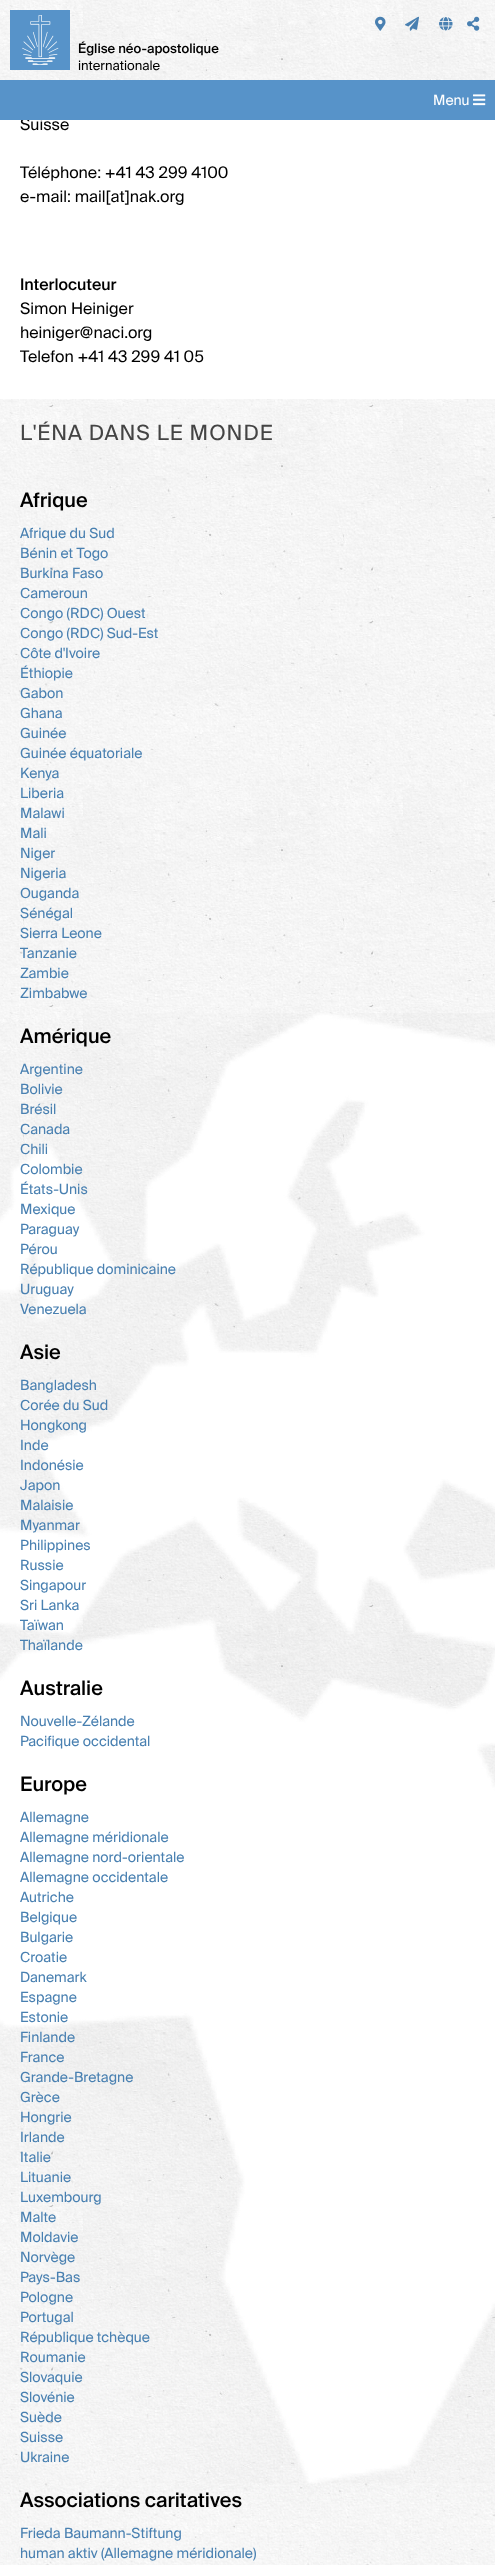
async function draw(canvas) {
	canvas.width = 495;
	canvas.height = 2565;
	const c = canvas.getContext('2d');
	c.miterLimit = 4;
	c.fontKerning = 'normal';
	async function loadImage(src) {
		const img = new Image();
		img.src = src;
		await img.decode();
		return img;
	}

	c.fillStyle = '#fff';
	c.fillRect(0, 0, 495, 2565);
	c.drawImage(await loadImage('img1.png'), 0, 399, 495, 2166);
	c.drawImage(await loadImage('img2.png'), 0, 0, 495, 80);
	c.drawImage(await loadImage('img3.png'), 10, 10, 60, 60);
	c.drawImage(await loadImage('img4.png'), 375, 16, 11, 15);
	c.drawImage(await loadImage('img5.png'), 405, 16, 14, 15);
	c.drawImage(await loadImage('img6.png'), 439, 17, 14, 14);
	c.drawImage(await loadImage('img7.png'), 467, 16, 13, 15);
	c.font = '500 13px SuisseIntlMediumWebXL';
	c.fillStyle = '#000';
	c.fillText('Église néo-apostolique', 78, 53);
	c.font = '13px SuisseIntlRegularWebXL';
	c.fillText('internationale', 78, 70);
	c.font = '16px SuisseIntlRegularWebXL';
	c.fillText('Suisse', 20, 130);
	c.fillStyle = '#5793c9';
	c.fillRect(0, 80, 495, 40);
	c.font = '14px SuisseIntlRegularWebXL';
	c.fillStyle = '#fff';
	c.fillText('Menu', 433, 105);
	c.drawImage(await loadImage('img8.png'), 473, 94, 13, 12);
	c.font = '16px SuisseIntlRegularWebXL';
	c.fillStyle = '#000';
	c.fillText('Téléphone: +41 43 299 4100', 20, 178);
	c.fillText('e-mail: mail[at]nak.org', 20, 202);
	c.font = '500 16px SuisseIntlMediumWebXL';
	c.fillText('Interlocuteur', 20, 290);
	c.font = '16px SuisseIntlRegularWebXL';
	for (const [text, x, y] of [
		['Simon Heiniger', 20, 314],
		['heiniger@naci.org', 20, 338],
		['Telefon +41 43 299 41 05', 20, 362],
	]) {
		c.fillText(text, x, y);
	}
	c.drawImage(await loadImage('img9.png'), 0, 1013, 495, 1470);
	c.letterSpacing = '1px';
	c.font = '21px SuisseIntlRegularWebXL';
	c.fillStyle = '#444';
	c.fillText('L\'ÉNA DANS LE MONDE', 20, 440);
	c.letterSpacing = '0px';
	c.font = '500 20px SuisseIntlMediumWebXL';
	c.fillStyle = '#000';
	c.fillText('Afrique', 20, 507);
	c.font = '14px SuisseIntlRegularWebXL';
	c.fillStyle = '#4980b1';
	for (const [text, x, y] of [
		['Afrique du Sud', 20, 538],
		['Bénin et Togo', 20, 558],
		['Burkina Faso', 20, 578],
		['Cameroun', 20, 598],
		['Congo (RDC) Ouest', 20, 618],
		['Congo (RDC) Sud-Est', 20, 638],
		['Côte d\'Ivoire', 20, 658],
		['Éthiopie', 20, 678],
		['Gabon', 20, 698],
		['Ghana', 20, 718],
		['Guinée', 20, 738],
		['Guinée équatoriale', 20, 758],
		['Kenya', 20, 778],
		['Liberia', 20, 798],
		['Malawi', 20, 818],
		['Mali', 20, 838],
		['Niger', 20, 858],
		['Nigeria', 20, 878],
		['Ouganda', 20, 898],
		['Sénégal', 20, 918],
		['Sierra Leone', 20, 938],
		['Tanzanie', 20, 958],
		['Zambie', 20, 978],
		['Zimbabwe', 20, 998],
	]) {
		c.fillText(text, x, y);
	}
	c.font = '500 20px SuisseIntlMediumWebXL';
	c.fillStyle = '#000';
	c.fillText('Amérique', 20, 1043);
	c.font = '14px SuisseIntlRegularWebXL';
	c.fillStyle = '#4980b1';
	for (const [text, x, y] of [
		['Argentine', 20, 1074],
		['Bolivie', 20, 1094],
		['Brésil', 20, 1114],
		['Canada', 20, 1134],
		['Chili', 20, 1154],
		['Colombie', 20, 1174],
		['États-Unis', 20, 1194],
		['Mexique', 20, 1214],
		['Paraguay', 20, 1234],
		['Pérou', 20, 1254],
		['République dominicaine', 20, 1274],
		['Uruguay', 20, 1294],
		['Venezuela', 20, 1314],
	]) {
		c.fillText(text, x, y);
	}
	c.font = '500 20px SuisseIntlMediumWebXL';
	c.fillStyle = '#000';
	c.fillText('Asie', 20, 1359);
	c.font = '14px SuisseIntlRegularWebXL';
	c.fillStyle = '#4980b1';
	for (const [text, x, y] of [
		['Bangladesh', 20, 1390],
		['Corée du Sud', 20, 1410],
		['Hongkong', 20, 1430],
		['Inde', 20, 1450],
		['Indonésie', 20, 1470],
		['Japon', 20, 1490],
		['Malaisie', 20, 1510],
		['Myanmar', 20, 1530],
		['Philippines', 20, 1550],
		['Russie', 20, 1570],
		['Singapour', 20, 1590],
		['Sri Lanka', 20, 1610],
		['Taïwan', 20, 1630],
		['Thaïlande', 20, 1650],
	]) {
		c.fillText(text, x, y);
	}
	c.font = '500 20px SuisseIntlMediumWebXL';
	c.fillStyle = '#000';
	c.fillText('Australie', 20, 1695);
	c.font = '14px SuisseIntlRegularWebXL';
	c.fillStyle = '#4980b1';
	c.fillText('Nouvelle-Zélande', 20, 1726);
	c.fillText('Pacifique occidental', 20, 1746);
	c.font = '500 20px SuisseIntlMediumWebXL';
	c.fillStyle = '#000';
	c.fillText('Europe', 20, 1791);
	c.font = '14px SuisseIntlRegularWebXL';
	c.fillStyle = '#4980b1';
	for (const [text, x, y] of [
		['Allemagne', 20, 1822],
		['Allemagne méridionale', 20, 1842],
		['Allemagne nord-orientale', 20, 1862],
		['Allemagne occidentale', 20, 1882],
		['Autriche', 20, 1902],
		['Belgique', 20, 1922],
		['Bulgarie', 20, 1942],
		['Croatie', 20, 1962],
		['Danemark', 20, 1982],
		['Espagne', 20, 2002],
		['Estonie', 20, 2022],
		['Finlande', 20, 2042],
		['France', 20, 2062],
		['Grande-Bretagne', 20, 2082],
		['Grèce', 20, 2102],
		['Hongrie', 20, 2122],
		['Irlande', 20, 2142],
		['Italie', 20, 2162],
		['Lituanie', 20, 2182],
		['Luxembourg', 20, 2202],
		['Malte', 20, 2222],
		['Moldavie', 20, 2242],
		['Norvège', 20, 2262],
		['Pays-Bas', 20, 2282],
		['Pologne', 20, 2302],
		['Portugal', 20, 2322],
		['République tchèque', 20, 2342],
		['Roumanie', 20, 2362],
		['Slovaquie', 20, 2382],
		['Slovénie', 20, 2402],
		['Suède', 20, 2422],
		['Suisse', 20, 2442],
		['Ukraine', 20, 2462],
	]) {
		c.fillText(text, x, y);
	}
	c.font = '500 20px SuisseIntlMediumWebXL';
	c.fillStyle = '#000';
	c.fillText('Associations caritatives', 20, 2507);
	c.font = '14px SuisseIntlRegularWebXL';
	c.fillStyle = '#4980b1';
	c.fillText('Frieda Baumann-Stiftung', 20, 2538);
	c.fillText('human aktiv (Allemagne méridionale)', 20, 2558);
}

draw(document.querySelector('canvas'));
